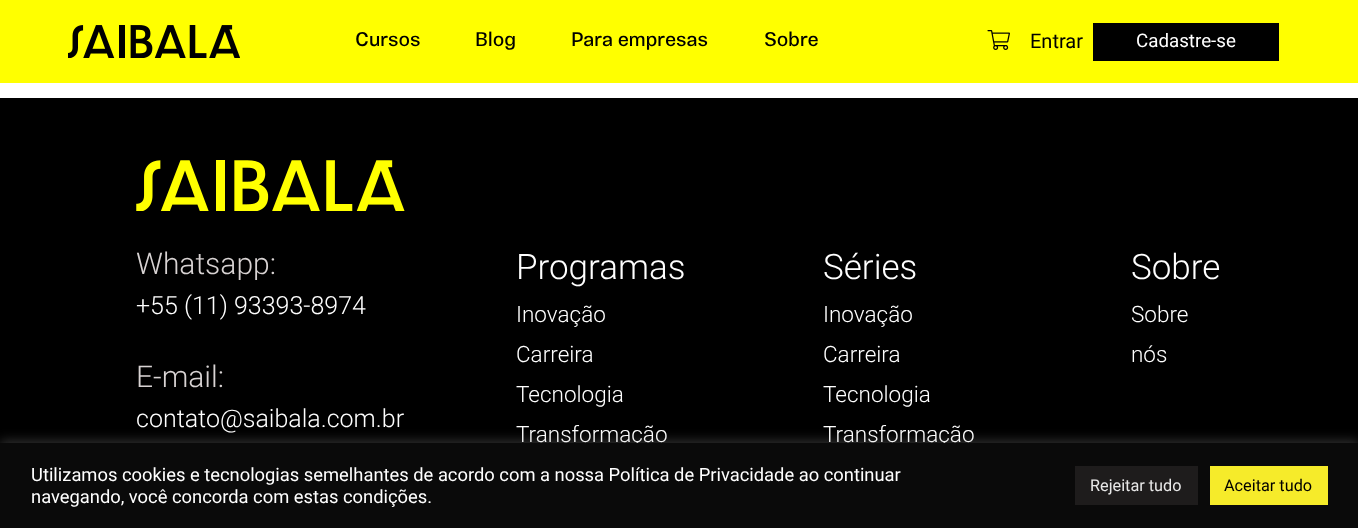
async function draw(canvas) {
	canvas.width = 1358;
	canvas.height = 528;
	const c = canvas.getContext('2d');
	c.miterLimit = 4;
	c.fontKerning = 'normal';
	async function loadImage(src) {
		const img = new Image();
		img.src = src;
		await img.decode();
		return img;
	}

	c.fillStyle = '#fff';
	c.fillRect(0, 0, 1358, 528);
	c.fillStyle = '#ff0';
	c.fillRect(0, 0, 1358, 83);
	c.drawImage(await loadImage('img1.png'), 68, 25, 172, 33);
	c.font = '20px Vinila';
	c.fillStyle = '#000';
	for (const [text, x, y] of [
		['Cursos', 355, 46],
		['Blog', 475, 46],
		['Para empresas', 571, 46],
		['Sobre', 764, 46],
	]) {
		c.fillText(text, x, y);
	}
	c.drawImage(await loadImage('img2.png'), 987, 30, 23, 20);
	c.font = '20px Roboto';
	c.fillText('Entrar', 1030, 48);
	c.fillRect(1093, 23, 186, 38);
	c.font = '18.75px Roboto';
	c.fillStyle = '#fff';
	c.fillText('Cadastre-se', 1136, 47);
	c.fillStyle = '#000';
	c.fillRect(0, 98, 1358, 345);
	c.drawImage(await loadImage('img3.png'), 136, 160, 269, 51);
	c.font = '300 30px Roboto';
	c.fillStyle = '#d8d3d3';
	c.fillText('Whatsapp:', 136, 274);
	c.font = '300 25px Roboto';
	c.fillStyle = '#fff';
	c.fillText('+55 (11) 93393-8974', 136, 314);
	c.font = '300 30px Roboto';
	c.fillStyle = '#d8d3d3';
	c.fillText('E-mail:', 136, 387);
	c.font = '300 25px Roboto';
	c.fillStyle = '#fff';
	c.fillText('contato@saibala.com.br', 136, 427);
	c.font = '300 35px Roboto';
	c.fillText('Programas', 516, 279);
	c.font = '300 22.5px Roboto';
	for (const [text, x, y] of [
		['Inovação', 516, 322],
		['Carreira', 516, 362],
		['Tecnologia', 516, 402],
		['Transformação', 516, 442],
	]) {
		c.fillText(text, x, y);
	}
	c.font = '300 35px Roboto';
	c.fillText('Séries', 823, 279);
	c.font = '300 22.5px Roboto';
	for (const [text, x, y] of [
		['Inovação', 823, 322],
		['Carreira', 823, 362],
		['Tecnologia', 823, 402],
		['Transformação', 823, 442],
	]) {
		c.fillText(text, x, y);
	}
	c.font = '300 35px Roboto';
	c.fillText('Sobre', 1131, 279);
	c.font = '300 22.5px Roboto';
	c.fillText('Sobre', 1131, 322);
	c.fillText('nós', 1131, 362);
	c.fillStyle = '#acabab4d';
	c.filter = 'blur(6px)';
	c.beginPath();
	c.rect(0, 441, 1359, 87);
	c.fill();
	c.filter = 'none';
	c.fillStyle = '#0a0a0a';
	c.fillRect(0, 443, 1358, 85);
	c.font = '18.35px Roboto';
	c.fillStyle = '#fff';
	c.fillText('Utilizamos cookies e tecnologias semelhantes de acordo com a nossa Política de Privacidade ao continuar', 31, 481);
	c.fillText('navegando, você concorda com estas condições.', 31, 503);
	c.fillStyle = '#1e1c1c';
	c.fillRect(1075, 466, 123, 39);
	c.font = '16.25px Roboto';
	c.fillStyle = '#e8e8e8';
	c.fillText('Rejeitar tudo', 1090, 491);
	c.fillStyle = '#f6eb2a';
	c.fillRect(1210, 466, 118, 39);
	c.fillStyle = '#000';
	c.fillText('Aceitar tudo', 1224, 491);
}

draw(document.querySelector('canvas'));
